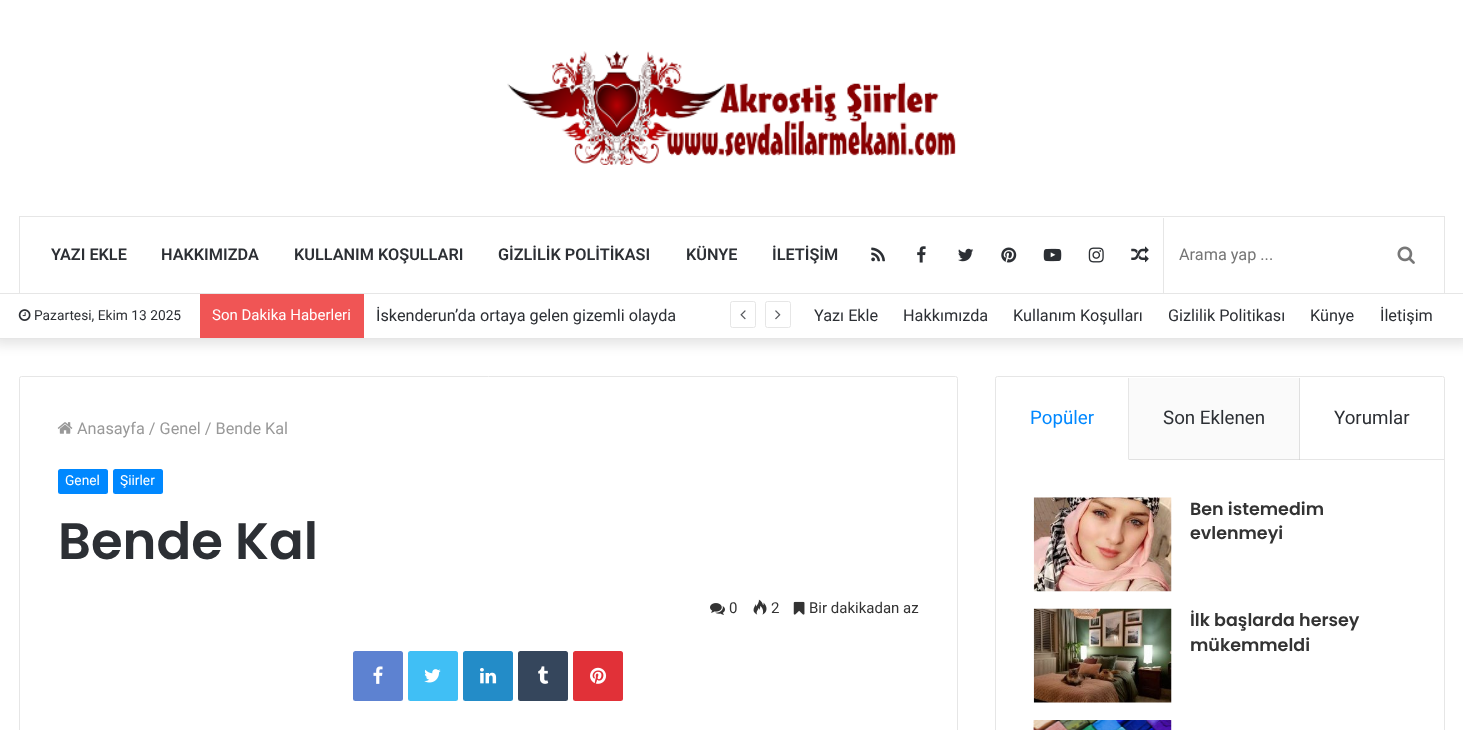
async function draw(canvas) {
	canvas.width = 1463;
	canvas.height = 730;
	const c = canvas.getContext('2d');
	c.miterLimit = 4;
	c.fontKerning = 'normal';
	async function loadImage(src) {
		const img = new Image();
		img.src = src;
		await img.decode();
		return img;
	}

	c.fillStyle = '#fff';
	c.fillRect(0, 0, 1463, 730);
	c.fillStyle = '#fafafa';
	c.fillRect(1129, 378, 171, 81);
	c.fillStyle = '#0000001a';
	c.filter = 'blur(6px)';
	c.beginPath();
	c.rect(-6, -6, 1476, 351);
	c.fill();
	c.filter = 'none';
	c.fillStyle = '#fff';
	c.fillRect(0, 0, 1463, 338);
	c.drawImage(await loadImage('img1.png'), 507, 51, 449, 114);
	c.fillStyle = '#e6e6e6';
	c.fillRect(0, 293, 1463, 1);
	c.strokeStyle = '#e6e6e6';
	c.strokeRect(19.5, 216.5, 1425, 77);
	c.font = '600 16.25px Roboto';
	c.fillStyle = '#2c2f34';
	for (const [text, x, y] of [
		['YAZI EKLE', 51, 260],
		['HAKKIMIZDA', 161, 260],
		['KULLANIM KOŞULLARI', 294, 260],
		['GİZLİLİK POLİTİKASI', 498, 260],
		['KÜNYE', 686, 260],
		['İLETİŞİM', 772, 260],
	]) {
		c.fillText(text, x, y);
	}
	c.drawImage(await loadImage('img2.png'), 871, 247, 14, 15);
	c.drawImage(await loadImage('img3.png'), 917, 246, 9, 17);
	c.drawImage(await loadImage('img4.png'), 958, 248, 16, 14);
	c.drawImage(await loadImage('img5.png'), 1001, 247, 16, 16);
	c.drawImage(await loadImage('img6.png'), 1043, 248, 19, 14);
	c.drawImage(await loadImage('img7.png'), 1088, 247, 16, 16);
	c.drawImage(await loadImage('img8.png'), 1131, 246, 18, 17);
	c.fillStyle = '#e6e6e6';
	c.fillRect(1163, 218, 1, 75);
	c.font = '16.25px Roboto';
	c.fillStyle = '#757575';
	c.fillText('Arama yap ...', 1179, 260);
	c.drawImage(await loadImage('img9.png'), 1397, 246, 18, 18);
	c.fillStyle = '#e6e6e6';
	c.fillRect(0, 338, 1463, 1);
	c.drawImage(await loadImage('img10.png'), 18, 309, 13, 12);
	c.font = '13.75px Roboto';
	c.fillStyle = '#2c2f34';
	c.fillText('Pazartesi, Ekim 13 2025', 34, 320);
	c.fillStyle = '#f05555';
	c.fillRect(200, 294, 164, 44);
	c.font = '15px Roboto';
	c.fillStyle = '#fff';
	c.fillText('Son Dakika Haberleri', 212, 320);
	c.font = '16.25px Roboto';
	c.fillStyle = '#2c2f34';
	c.fillText('İskenderun’da ortaya gelen gizemli olayda', 376, 321);
	c.beginPath();
	c.roundRect(730.5, 301.5, 25, 26, 2);
	c.stroke();
	c.drawImage(await loadImage('img11.png'), 740, 310, 6, 10);
	c.beginPath();
	c.roundRect(765.5, 301.5, 25, 26, 2);
	c.stroke();
	c.drawImage(await loadImage('img12.png'), 775, 310, 6, 10);
	for (const [text, x, y] of [
		['Yazı Ekle', 814, 321],
		['Hakkımızda', 903, 321],
		['Kullanım Koşulları', 1013, 321],
		['Gizlilik Politikası', 1168, 321],
		['Künye', 1310, 321],
		['İletişim', 1380, 321],
	]) {
		c.fillText(text, x, y);
	}
	c.beginPath();
	c.roundRect(19.5, 376.5, 938, 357, 2);
	c.stroke();
	c.drawImage(await loadImage('img13.png'), 57, 422, 16, 12);
	c.fillStyle = '#999';
	c.fillText('Anasayfa / Genel / Bende Kal', 77, 434);
	c.fillStyle = '#08f';
	c.beginPath();
	c.roundRect(58, 469, 50, 25, 2.5);
	c.fill();
	c.font = '13.75px Roboto';
	c.fillStyle = '#fff';
	c.fillText('Genel', 65, 485);
	c.fillStyle = '#08f';
	c.beginPath();
	c.roundRect(113, 469, 50, 25, 2.5);
	c.fill();
	c.fillStyle = '#fff';
	c.fillText('Şiirler', 120, 485);
	c.font = '600 51.25px Poppins';
	c.fillStyle = '#2c2f34';
	c.fillText('Bende Kal', 58, 559);
	c.drawImage(await loadImage('img14.png'), 710, 603, 15, 12);
	c.font = '15px Roboto';
	c.fillStyle = '#333';
	c.fillText('0', 729, 613);
	c.drawImage(await loadImage('img15.png'), 753, 599, 14, 16);
	c.fillText('2', 771, 613);
	c.drawImage(await loadImage('img16.png'), 793, 601, 12, 14);
	c.fillText('Bir dakikadan az', 809, 613);
	c.fillStyle = '#5d82d1';
	c.beginPath();
	c.roundRect(353, 651, 50, 50, 2.5);
	c.fill();
	c.drawImage(await loadImage('img17.png'), 373, 666, 10, 18);
	c.fillStyle = '#40bff5';
	c.beginPath();
	c.roundRect(408, 651, 50, 50, 2.5);
	c.fill();
	c.drawImage(await loadImage('img18.png'), 424, 669, 17, 14);
	c.fillStyle = '#238cc8';
	c.beginPath();
	c.roundRect(463, 651, 50, 50, 2.5);
	c.fill();
	c.drawImage(await loadImage('img19.png'), 480, 668, 17, 16);
	c.fillStyle = '#35465c';
	c.beginPath();
	c.roundRect(518, 651, 50, 50, 2.5);
	c.fill();
	c.drawImage(await loadImage('img20.png'), 538, 666, 11, 18);
	c.fillStyle = '#e13138';
	c.beginPath();
	c.roundRect(573, 651, 50, 50, 2.5);
	c.fill();
	c.drawImage(await loadImage('img21.png'), 590, 667, 17, 17);
	c.beginPath();
	c.roundRect(995.5, 376.5, 449, 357, 2);
	c.stroke();
	c.fillStyle = '#e6e6e6';
	c.fillRect(1300, 459, 144, 1);
	c.fillStyle = '#e1e1e1';
	c.fillRect(1129, 459, 171, 1);
	c.fillStyle = '#e6e6e6';
	c.beginPath();
	c.moveTo(1129, 378);
	c.lineTo(1129, 460);
	c.lineTo(1128, 459);
	c.lineTo(1128, 378);
	c.closePath();
	c.fill();
	c.font = '18.75px Roboto';
	c.fillStyle = '#08f';
	c.fillText('Popüler', 1030, 424);
	c.fillStyle = '#0000001a';
	c.beginPath();
	c.moveTo(1300, 378);
	c.lineTo(1300, 460);
	c.lineTo(1299, 459);
	c.lineTo(1299, 378);
	c.closePath();
	c.fill();
	c.fillStyle = '#2c2f34';
	c.fillText('Son Eklenen', 1163, 424);
	c.fillText('Yorumlar', 1334, 424);
	c.drawImage(await loadImage('img22.png'), 1033, 497, 139, 95);
	c.font = '600 17.5px Poppins';
	c.fillStyle = '#333';
	c.fillText('Ben istemedim', 1190, 515);
	c.fillText('evlenmeyi', 1190, 539);
	c.drawImage(await loadImage('img23.png'), 1033, 608, 139, 95);
	c.fillText('İlk başlarda hersey', 1190, 626);
	c.fillText('mükemmeldi', 1190, 651);
	c.drawImage(await loadImage('img24.png'), 1033, 720, 139, 10);
}

draw(document.querySelector('canvas'));
